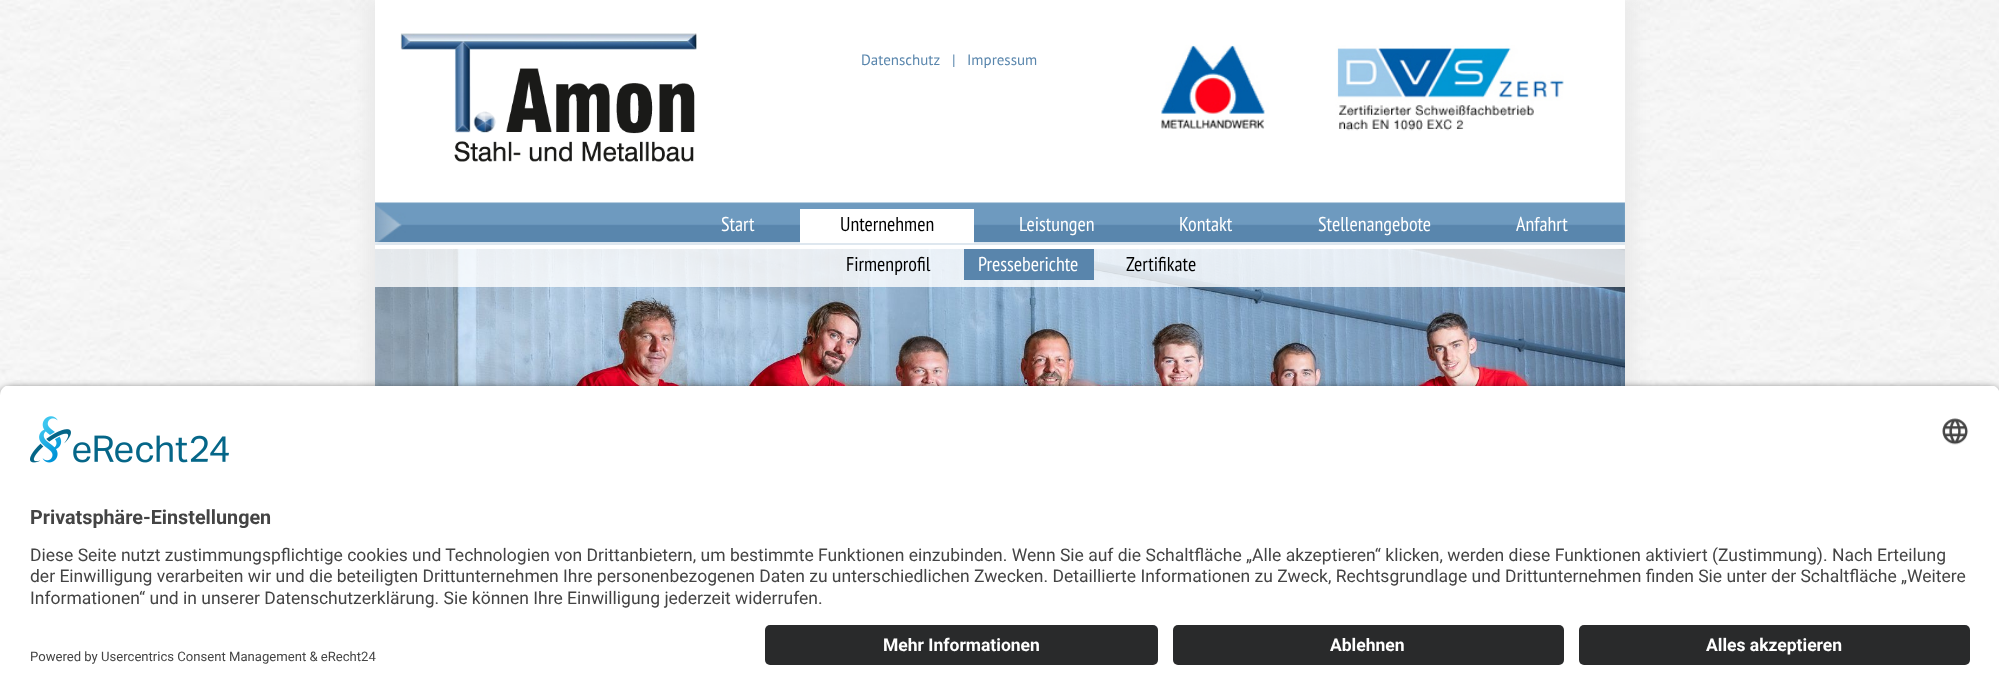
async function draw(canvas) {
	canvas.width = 1999;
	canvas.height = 695;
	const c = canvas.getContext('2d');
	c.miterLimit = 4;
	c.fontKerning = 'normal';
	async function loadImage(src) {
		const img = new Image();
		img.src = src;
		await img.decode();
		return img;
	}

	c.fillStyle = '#fff';
	c.fillRect(0, 0, 1999, 695);
	c.drawImage(await loadImage('img1.png'), 0, 0, 1999, 395);
	c.fillStyle = '#ebebeb';
	c.filter = 'blur(6px)';
	c.beginPath();
	c.rect(365, 0, 1250, 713);
	c.fill();
	c.filter = 'none';
	c.filter = 'blur(6px)';
	c.beginPath();
	c.rect(385, 0, 1250, 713);
	c.fill();
	c.filter = 'none';
	c.fillStyle = '#fff';
	c.fillRect(375, 0, 1250, 249);
	c.drawImage(await loadImage('img2.png'), 400, 33, 297, 129);
	c.font = '15px PT Sans';
	c.fillStyle = '#5885ac';
	for (const [text, x, y] of [
		['Datenschutz', 861, 65],
		['|', 952, 65],
		['Impressum', 967, 65],
	]) {
		c.fillText(text, x, y);
	}
	c.drawImage(await loadImage('img3.png'), 1161, 45, 403, 86);
	c.drawImage(await loadImage('img4.png'), 375, 202, 1250, 43);
	c.font = '20px PT Sans Narrow';
	c.fillStyle = '#fff';
	for (const [text, x, y] of [
		['Start', 721, 231],
		['Leistungen', 1019, 231],
		['Stellenangebote', 1318, 231],
		['Anfahrt', 1516, 231],
	]) {
		c.fillText(text, x, y);
	}
	c.fillRect(800, 209, 174, 34);
	c.fillStyle = '#000';
	c.fillText('Unternehmen', 840, 231);
	c.drawImage(await loadImage('img5.png'), 375, 248, 1250, 138);
	c.fillStyle = '#ffffffcc';
	c.fillRect(375, 242, 1250, 45);
	c.fillStyle = '#000';
	c.fillText('Firmenprofil', 846, 271);
	c.fillStyle = '#5985ac';
	c.fillRect(964, 249, 130, 31);
	c.fillStyle = '#fff';
	c.fillText('Presseberichte', 978, 271);
	c.fillStyle = '#000';
	c.fillText('Zertifikate', 1126, 271);
	c.fillStyle = '#fff';
	c.fillText('Kontakt', 1179, 231);
	c.fillStyle = '#000000cc';
	c.filter = 'blur(4.5px)';
	c.beginPath();
	c.roundRect(0, 389, 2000, 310, 10);
	c.fill();
	c.filter = 'none';
	c.save();
	c.beginPath();
	c.moveTo(10, 385);
	c.lineTo(1990, 385);
	c.bezierCurveTo(1995.5, 385, 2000, 389.5, 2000, 395);
	c.lineTo(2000, 615);
	c.lineTo(0, 615);
	c.lineTo(0, 395);
	c.bezierCurveTo(0, 389.5, 4.5, 385, 10, 385);
	c.closePath();
	c.clip();
	c.fillStyle = '#fff';
	c.fillRect(0, 386, 1999, 229);
	c.restore();
	c.drawImage(await loadImage('img6.png'), 30, 416, 199, 47);
	c.drawImage(await loadImage('img7.png'), 1942, 418, 27, 27);
	c.font = 'bold 19.75px Roboto';
	c.fillStyle = '#444';
	c.fillText('Privatsphäre-Einstellungen', 30, 524);
	c.font = '17.5px Roboto';
	for (const [text, x, y] of [
		['Diese Seite nutzt zustimmungspflichtige cookies und Technologien von Drittanbietern, um bestimmte Funktionen einzubinden. Wenn Sie auf die Schaltfläche „Alle akzeptieren“ klicken, werden diese Funktionen aktiviert (Zustimmung). Nach Erteilung', 30, 561],
		['der Einwilligung verarbeiten wir und die beteiligten Drittunternehmen Ihre personenbezogenen Daten zu unterschiedlichen Zwecken. Detaillierte Informationen zu Zweck, Rechtsgrundlage und Drittunternehmen finden Sie unter der Schaltfläche „Weitere', 30, 582],
		['Informationen“ und in unserer Datenschutzerklärung. Sie können Ihre Einwilligung jederzeit widerrufen.', 30, 604],
	]) {
		c.fillText(text, x, y);
	}
	c.fillStyle = '#fff';
	c.fillRect(0, 615, 1999, 80);
	c.fillStyle = '#292a2b';
	c.beginPath();
	c.roundRect(765, 625, 393, 40, 5);
	c.fill();
	c.font = 'bold 17.5px Roboto';
	c.fillStyle = '#fff';
	c.fillText('Mehr Informationen', 883, 651);
	c.fillStyle = '#292a2b';
	c.beginPath();
	c.roundRect(1173, 625, 391, 40, 5);
	c.fill();
	c.fillStyle = '#fff';
	c.fillText('Ablehnen', 1330, 651);
	c.fillStyle = '#292a2b';
	c.beginPath();
	c.roundRect(1579, 625, 391, 40, 5);
	c.fill();
	c.fillStyle = '#fff';
	c.fillText('Alles akzeptieren', 1706, 651);
	c.font = '13.1px Roboto';
	c.fillStyle = '#444';
	c.fillText('Powered by Usercentrics Consent Management & eRecht24', 30, 661);
}

draw(document.querySelector('canvas'));
